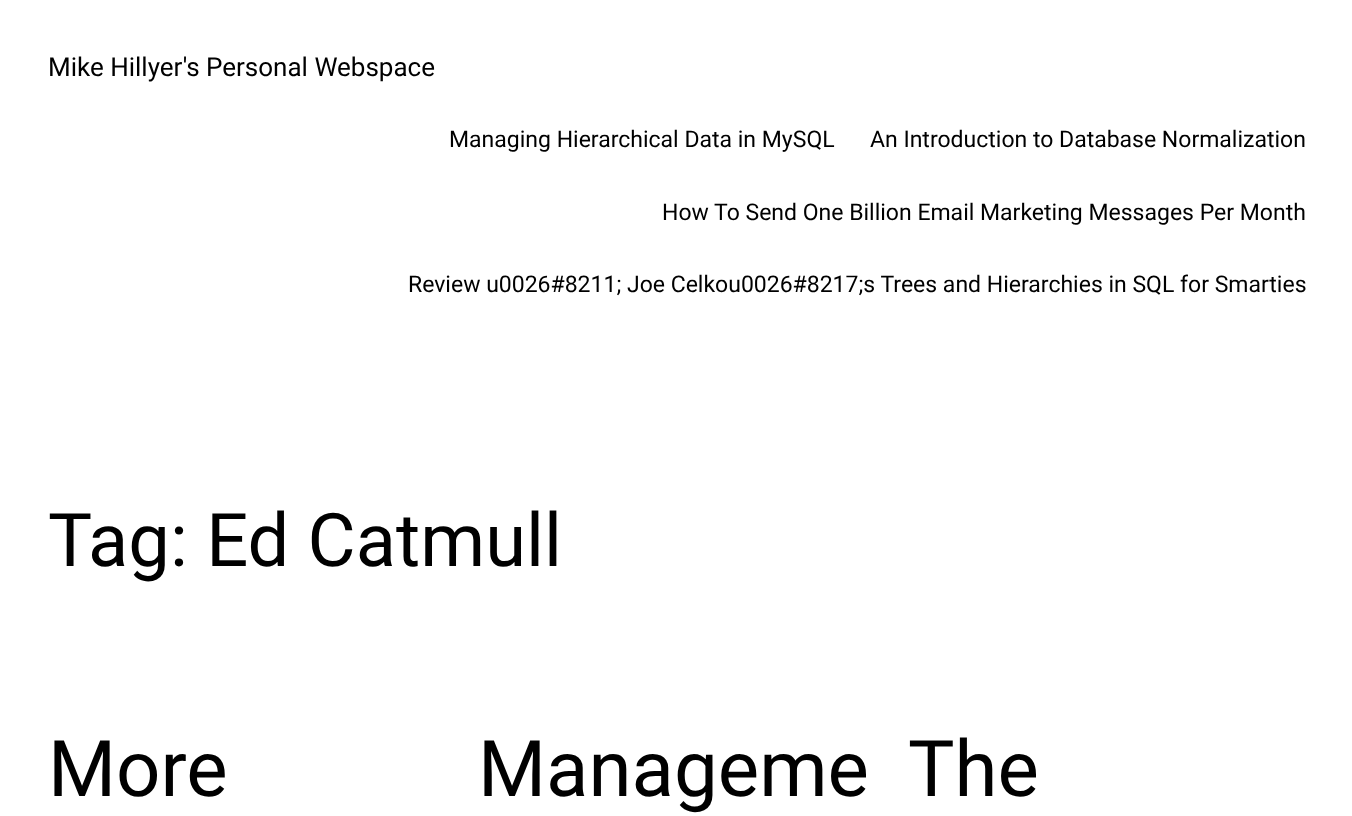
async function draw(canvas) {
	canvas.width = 1352;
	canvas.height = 816;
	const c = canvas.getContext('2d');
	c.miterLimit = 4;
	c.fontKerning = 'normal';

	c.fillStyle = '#fff';
	c.fillRect(0, 0, 1352, 816);
	c.font = '26px Roboto';
	c.fillStyle = '#000';
	c.fillText('Mike Hillyer\'s Personal Webspace', 48, 76);
	c.font = '23px Roboto';
	for (const [text, x, y] of [
		['Managing Hierarchical Data in MySQL', 449, 147],
		['An Introduction to Database Normalization', 870, 147],
		['How To Send One Billion Email Marketing Messages Per Month', 662, 220],
		['Review u0026#8211; Joe Celkou0026#8217;s Trees and Hierarchies in SQL for Smarties', 408, 292],
	]) {
		c.fillText(text, x, y);
	}
	c.font = '74px Roboto';
	c.fillText('Tag: Ed Catmull', 48, 566);
	c.font = '78px Roboto';
	for (const [text, x, y] of [
		['More', 48, 796],
		['Manageme', 478, 796],
		['The', 908, 796],
	]) {
		c.fillText(text, x, y);
	}
}

draw(document.querySelector('canvas'));
